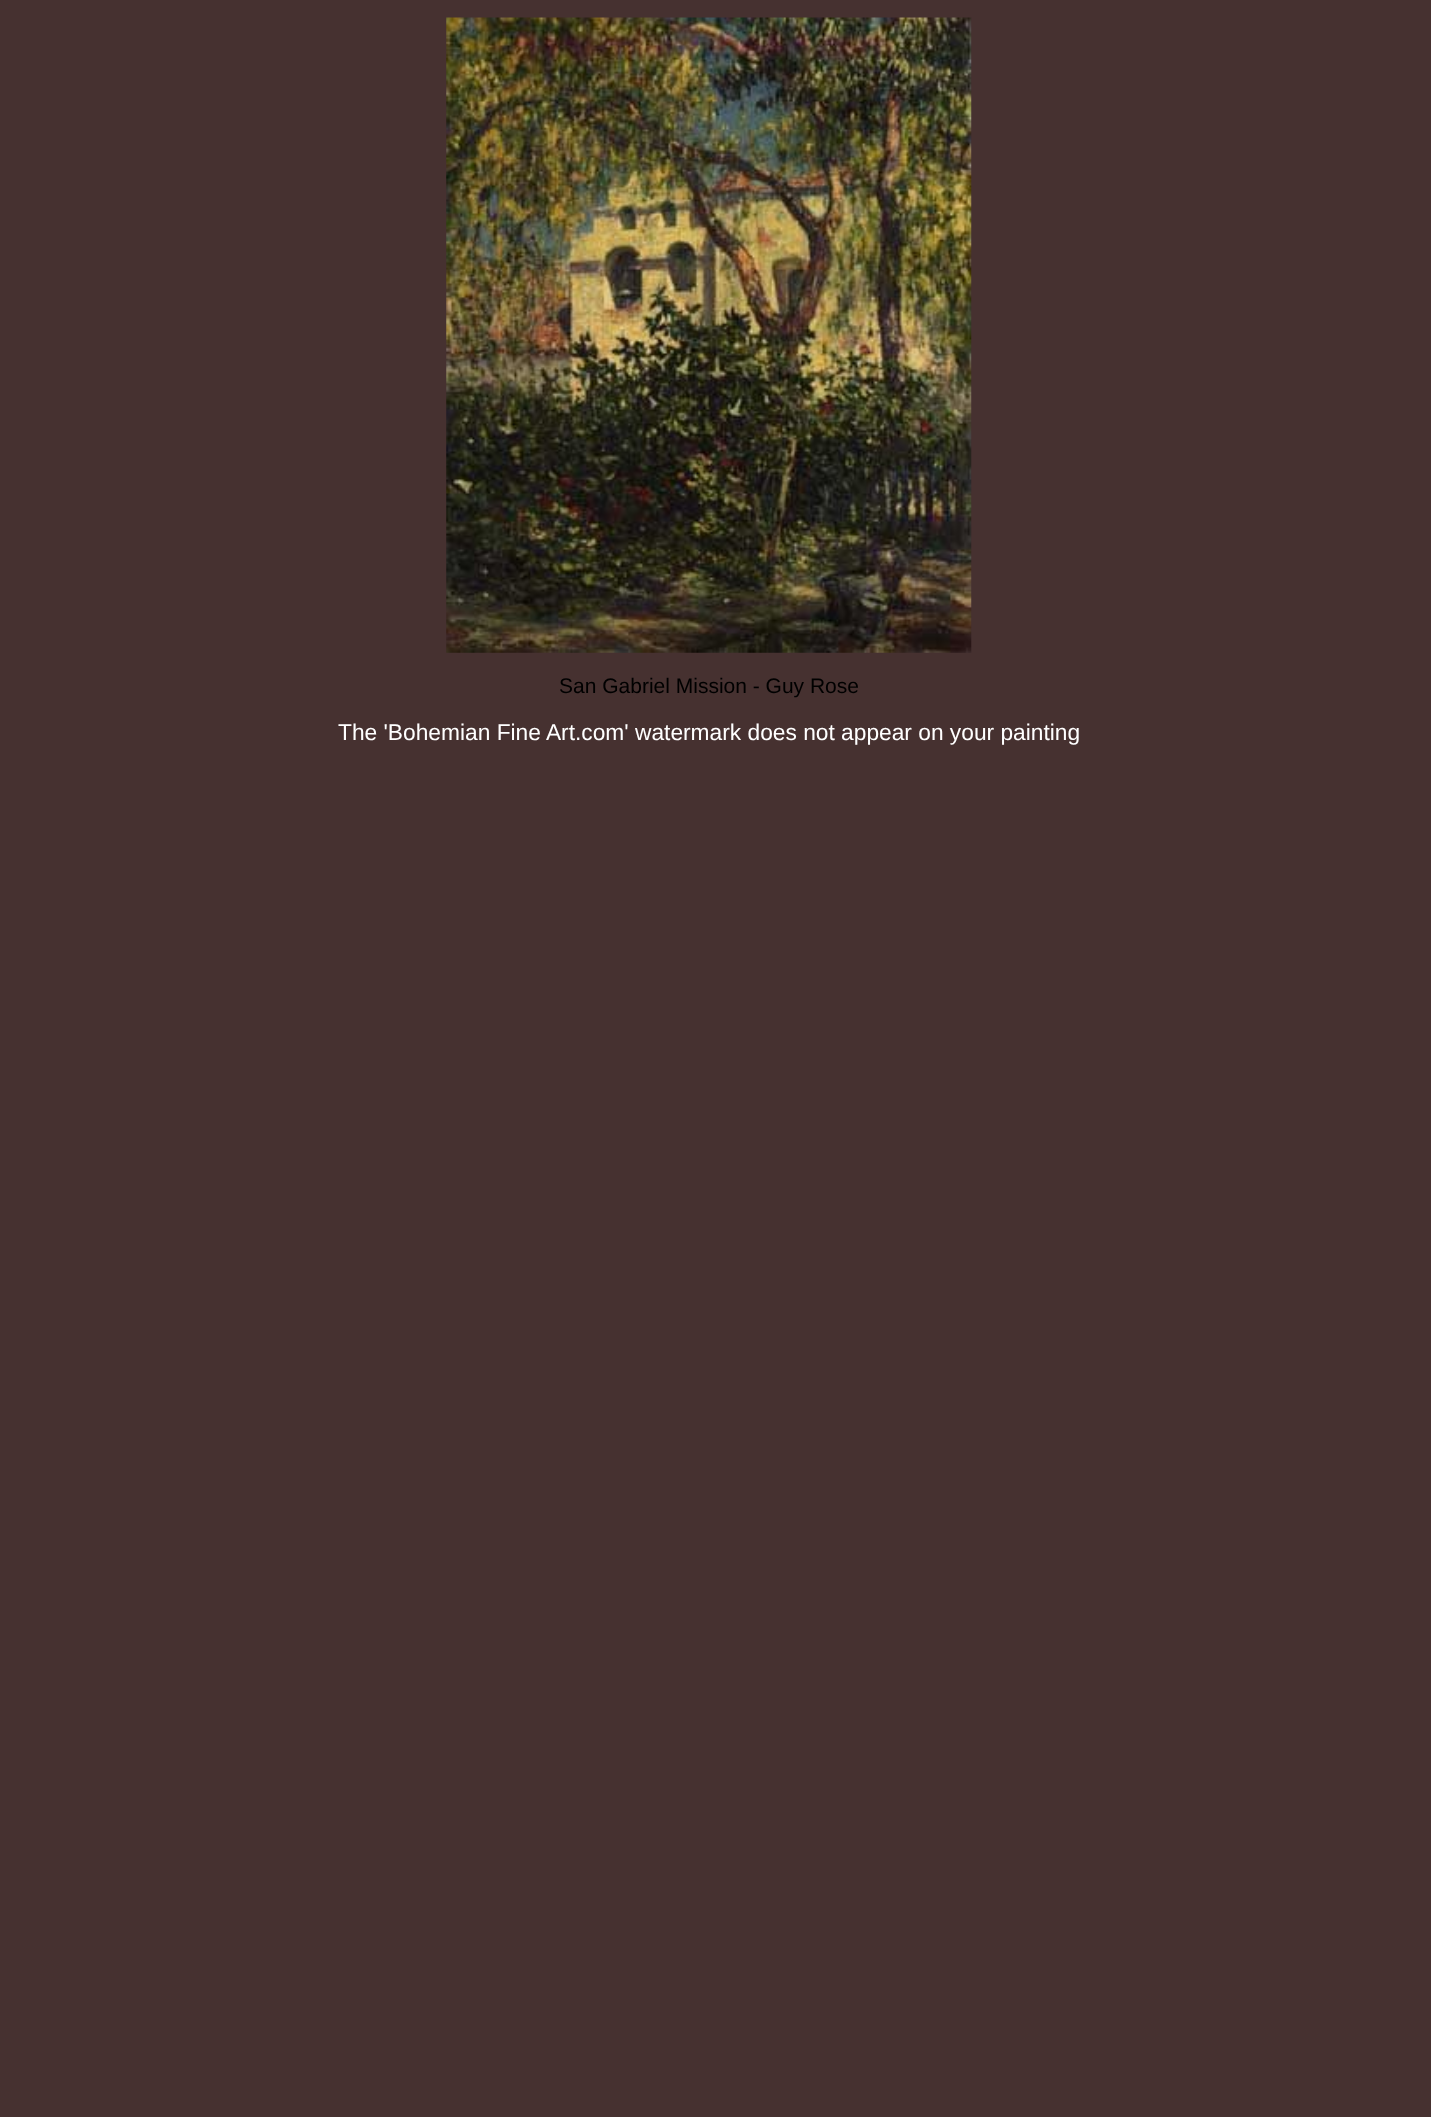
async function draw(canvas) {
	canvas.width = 1431;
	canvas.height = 2117;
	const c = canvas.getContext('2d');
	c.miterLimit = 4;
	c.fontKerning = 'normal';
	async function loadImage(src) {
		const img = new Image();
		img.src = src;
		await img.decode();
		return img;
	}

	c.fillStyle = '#463130';
	c.fillRect(0, 0, 1431, 2117);
	c.drawImage(await loadImage('img1.png'), 446, 17, 526, 636);
	c.font = '21px Liberation Sans';
	c.fillStyle = '#000';
	c.fillText('San Gabriel Mission - Guy Rose', 559, 693);
	c.font = '22.75px Liberation Sans';
	c.fillStyle = '#fff';
	c.fillText('The \'Bohemian Fine Art.com\' watermark does not appear on your painting', 338, 740);
}

draw(document.querySelector('canvas'));
